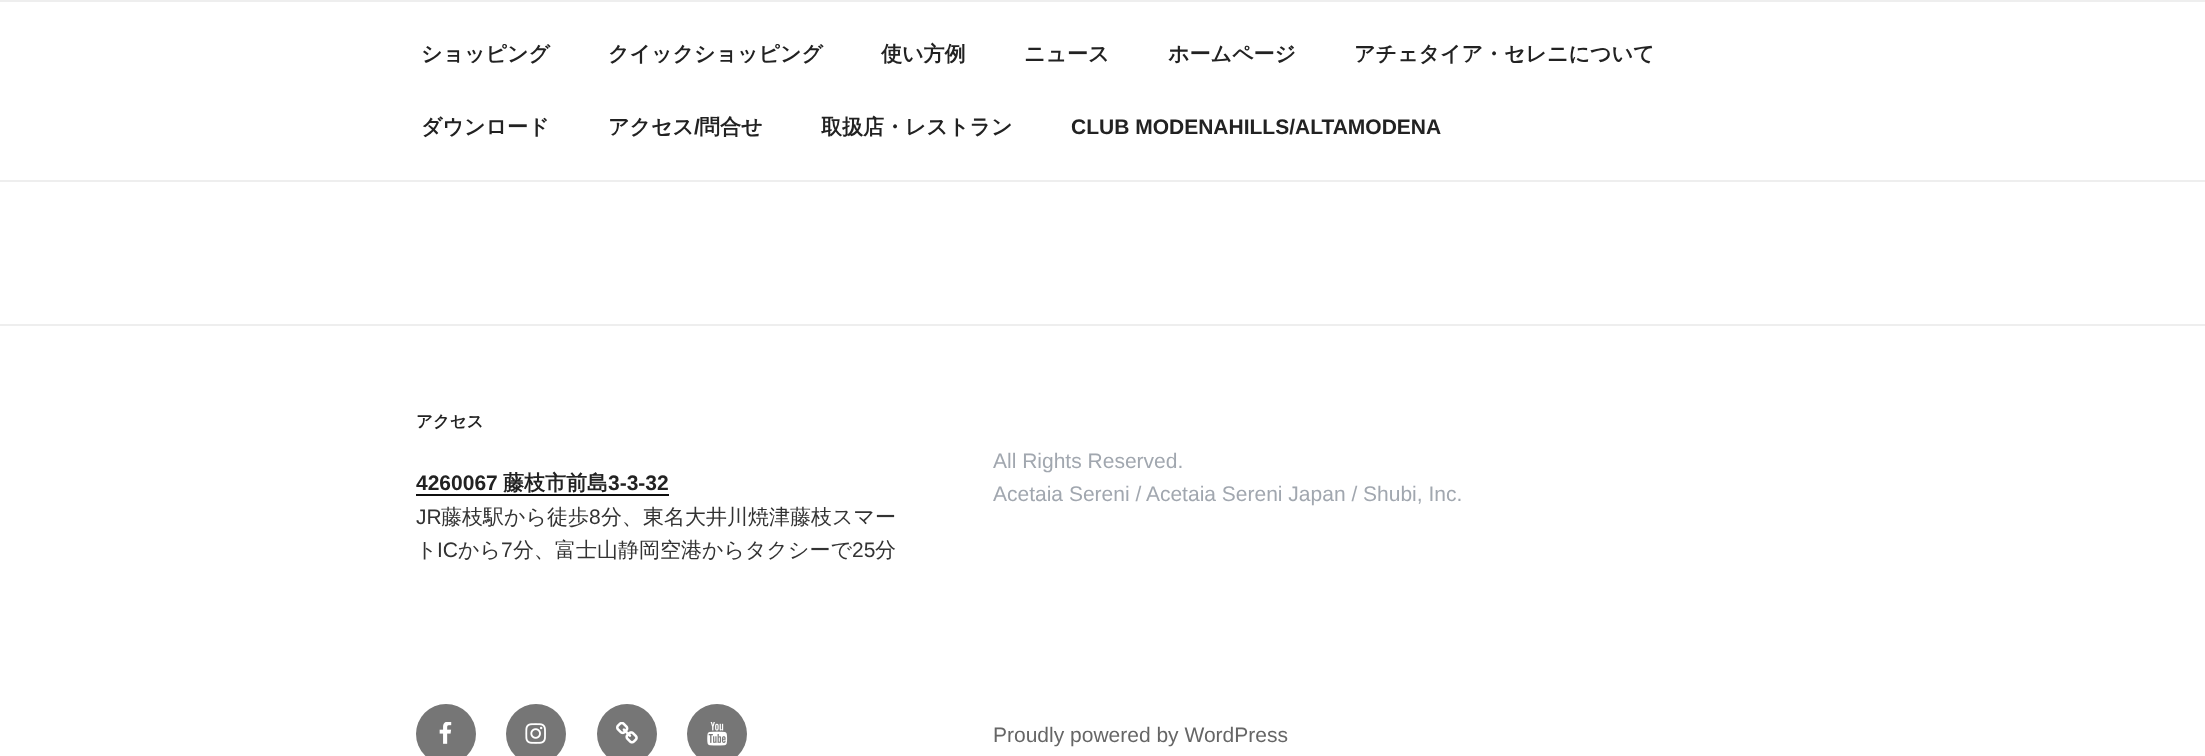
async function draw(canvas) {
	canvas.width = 2205;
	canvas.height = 756;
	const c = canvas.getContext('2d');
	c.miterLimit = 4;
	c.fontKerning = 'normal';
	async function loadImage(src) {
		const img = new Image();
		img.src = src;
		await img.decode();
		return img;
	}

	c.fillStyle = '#fff';
	c.fillRect(0, 0, 2205, 756);
	c.fillStyle = '#eee';
	c.fillRect(0, 0, 2205, 2);
	c.fillRect(0, 180, 2205, 2);
	c.font = 'bold 21px WenQuanYi Zen Hei';
	c.fillStyle = '#222';
	for (const [text, x, y] of [
		['ショッピング', 421, 61],
		['クイックショッピング', 608, 61],
		['使い方例', 881, 61],
		['ニュース', 1024, 61],
		['ホームページ', 1168, 61],
		['アチェタイア・セレニについて', 1354, 61],
		['ダウンロード', 421, 134],
		['アクセス', 608, 134],
	]) {
		c.fillText(text, x, y);
	}
	c.font = 'bold 21px Liberation Sans';
	c.fillText('/', 694, 134);
	c.font = 'bold 21px WenQuanYi Zen Hei';
	c.fillText('問合せ', 699, 134);
	c.fillText('取扱店・レストラン', 821, 134);
	c.font = 'bold 21px Liberation Sans';
	c.fillText('CLUB MODENAHILLS/ALTAMODENA', 1071, 134);
	c.fillStyle = '#eee';
	c.fillRect(0, 324, 2205, 2);
	c.font = 'bold 16.5px WenQuanYi Zen Hei';
	c.fillStyle = '#222';
	c.fillText('アクセス', 416, 427);
	c.font = 'bold 21px Liberation Sans';
	c.fillText('4260067', 416, 490);
	c.fillStyle = '#0f0f0f';
	c.fillRect(416, 494, 253, 2);
	c.font = 'bold 21px WenQuanYi Zen Hei';
	c.fillStyle = '#222';
	c.fillText('藤枝市前島', 503, 490);
	c.font = 'bold 21px Liberation Sans';
	c.fillText('3-3-32', 608, 490);
	c.font = '21px Liberation Sans';
	c.fillStyle = '#333';
	c.fillText('JR', 416, 524);
	c.font = '500 21px WenQuanYi Zen Hei';
	c.fillText('藤枝駅から徒歩', 441, 524);
	c.font = '21px Liberation Sans';
	c.fillText('8', 589, 524);
	c.font = '500 21px WenQuanYi Zen Hei';
	c.fillText('分、東名大井川焼津藤枝スマー', 601, 524);
	c.fillText('ト', 416, 557);
	c.font = '21px Liberation Sans';
	c.fillText('IC', 437, 557);
	c.font = '500 21px WenQuanYi Zen Hei';
	c.fillText('から', 458, 557);
	c.font = '21px Liberation Sans';
	c.fillText('7', 501, 557);
	c.font = '500 21px WenQuanYi Zen Hei';
	c.fillText('分、富士山静岡空港からタクシーで', 513, 557);
	c.font = '21px Liberation Sans';
	c.fillText('25', 852, 557);
	c.font = '500 21px WenQuanYi Zen Hei';
	c.fillText('分', 875, 557);
	c.font = '21px Liberation Sans';
	c.fillStyle = '#a1a7af';
	c.fillText('All Rights Reserved.', 993, 468);
	c.fillText('Acetaia Sereni / Acetaia Sereni Japan / Shubi, Inc.', 993, 501);
	c.fillStyle = '#767676';
	c.beginPath();
	c.arc(446, 734, 30, 0, 2 * Math.PI);
	c.fill();
	c.drawImage(await loadImage('img1.png'), 439, 722, 13, 22);
	c.beginPath();
	c.arc(536, 734, 30, 0, 2 * Math.PI);
	c.fill();
	c.drawImage(await loadImage('img2.png'), 525, 723, 21, 21);
	c.beginPath();
	c.arc(627, 734, 30, 0, 2 * Math.PI);
	c.fill();
	c.drawImage(await loadImage('img3.png'), 616, 722, 22, 22);
	c.beginPath();
	c.arc(717, 734, 30, 0, 2 * Math.PI);
	c.fill();
	c.drawImage(await loadImage('img4.png'), 707, 722, 21, 24);
	c.fillStyle = '#666';
	c.fillText('Proudly powered by WordPress', 993, 742);
}

draw(document.querySelector('canvas'));
